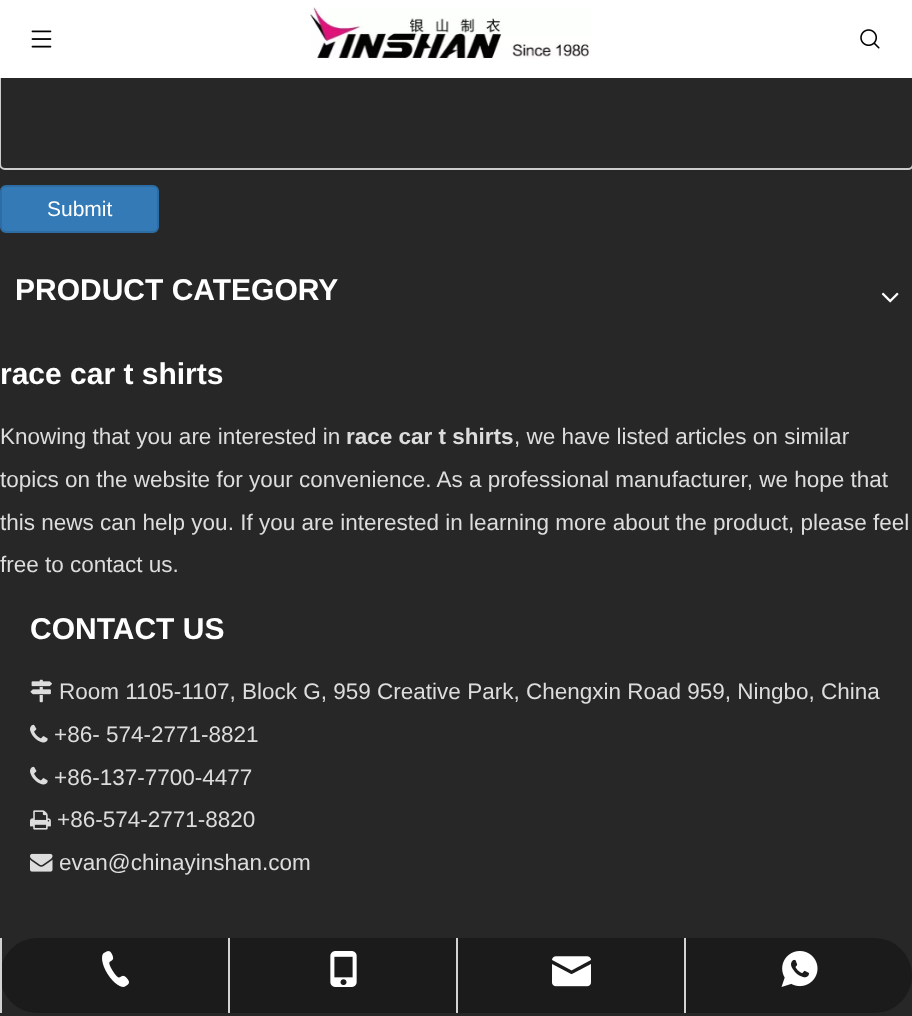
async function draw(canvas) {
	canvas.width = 912;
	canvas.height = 1016;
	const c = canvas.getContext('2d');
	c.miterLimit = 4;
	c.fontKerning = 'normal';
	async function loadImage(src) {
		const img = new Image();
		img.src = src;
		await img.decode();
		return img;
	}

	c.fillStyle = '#272727';
	c.fillRect(0, 0, 912, 1016);
	c.beginPath();
	c.roundRect(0, 36, 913, 133, 5);
	c.strokeStyle = '#ccc';
	c.lineWidth = 2;
	c.stroke();
	c.fillStyle = '#fff';
	c.fillRect(0, 0, 912, 78);
	c.drawImage(await loadImage('img1.png'), 31, 30, 21, 18);
	c.drawImage(await loadImage('img2.png'), 310, 7, 281, 52);
	c.drawImage(await loadImage('img3.png'), 860, 29, 20, 20);
	c.fillStyle = '#337ab7';
	c.beginPath();
	c.roundRect(1, 186, 157, 46, 5);
	c.fill();
	c.strokeStyle = '#2e6da4';
	c.stroke();
	c.font = '21px Liberation Sans';
	c.fillStyle = '#fff';
	c.fillText('Submit', 47, 216);
	c.fillStyle = '#1b1b1b';
	c.beginPath();
	c.roundRect(0, 938, 912, 75, 37.5);
	c.fill();
	c.fillStyle = '#d3d3d3';
	c.fillRect(0, 938, 2, 75);
	c.drawImage(await loadImage('img4.png'), 102, 951, 27, 36);
	c.fillRect(228, 938, 2, 75);
	c.drawImage(await loadImage('img5.png'), 330, 951, 27, 36);
	c.fillRect(456, 938, 2, 75);
	c.drawImage(await loadImage('img6.png'), 552, 956, 39, 31);
	c.fillRect(684, 938, 2, 75);
	c.drawImage(await loadImage('img7.png'), 781, 951, 37, 36);
	c.font = 'bold 30px Liberation Sans';
	c.fillStyle = '#fff';
	c.fillText('PRODUCT CATEGORY', 15, 300);
	c.drawImage(await loadImage('img8.png'), 881, 292, 18, 11);
	c.fillText('race car t shirts', 0, 384);
	c.font = '22.5px Liberation Sans';
	c.fillStyle = '#ddd';
	c.fillText('Knowing that you are interested in', 0, 444);
	c.font = 'bold 22.5px Liberation Sans';
	c.fillText('race car t shirts', 346, 444);
	c.font = '22.5px Liberation Sans';
	for (const [text, x, y] of [
		[', we have listed articles on similar', 514, 444],
		['topics on the website for your convenience. As a professional manufacturer, we hope that', 0, 487],
		['this news can help you. If you are interested in learning more about the product, please feel', 0, 530],
		['free to contact us.', 0, 572],
	]) {
		c.fillText(text, x, y);
	}
	c.font = 'bold 30px Liberation Sans';
	c.fillStyle = '#fff';
	c.fillText('CONTACT US', 30, 639);
	c.drawImage(await loadImage('img9.png'), 30, 679, 22, 24);
	c.font = '22.5px Liberation Sans';
	c.fillStyle = '#ddd';
	c.fillText('Room 1105-1107, Block G, 959 Creative Park, Chengxin Road 959, Ningbo, China', 59, 699);
	c.drawImage(await loadImage('img10.png'), 30, 724, 18, 19);
	c.fillText('+86- 574-2771-8821', 54, 742);
	c.drawImage(await loadImage('img10.png'), 30, 766, 18, 19);
	c.fillText('+86-137-7700-4477', 54, 785);
	c.drawImage(await loadImage('img11.png'), 30, 810, 21, 20);
	c.fillText('+86-574-2771-8820', 57, 827);
	c.drawImage(await loadImage('img12.png'), 30, 853, 23, 19);
	c.fillText('evan@chinayinshan.com', 59, 870);
}

draw(document.querySelector('canvas'));
